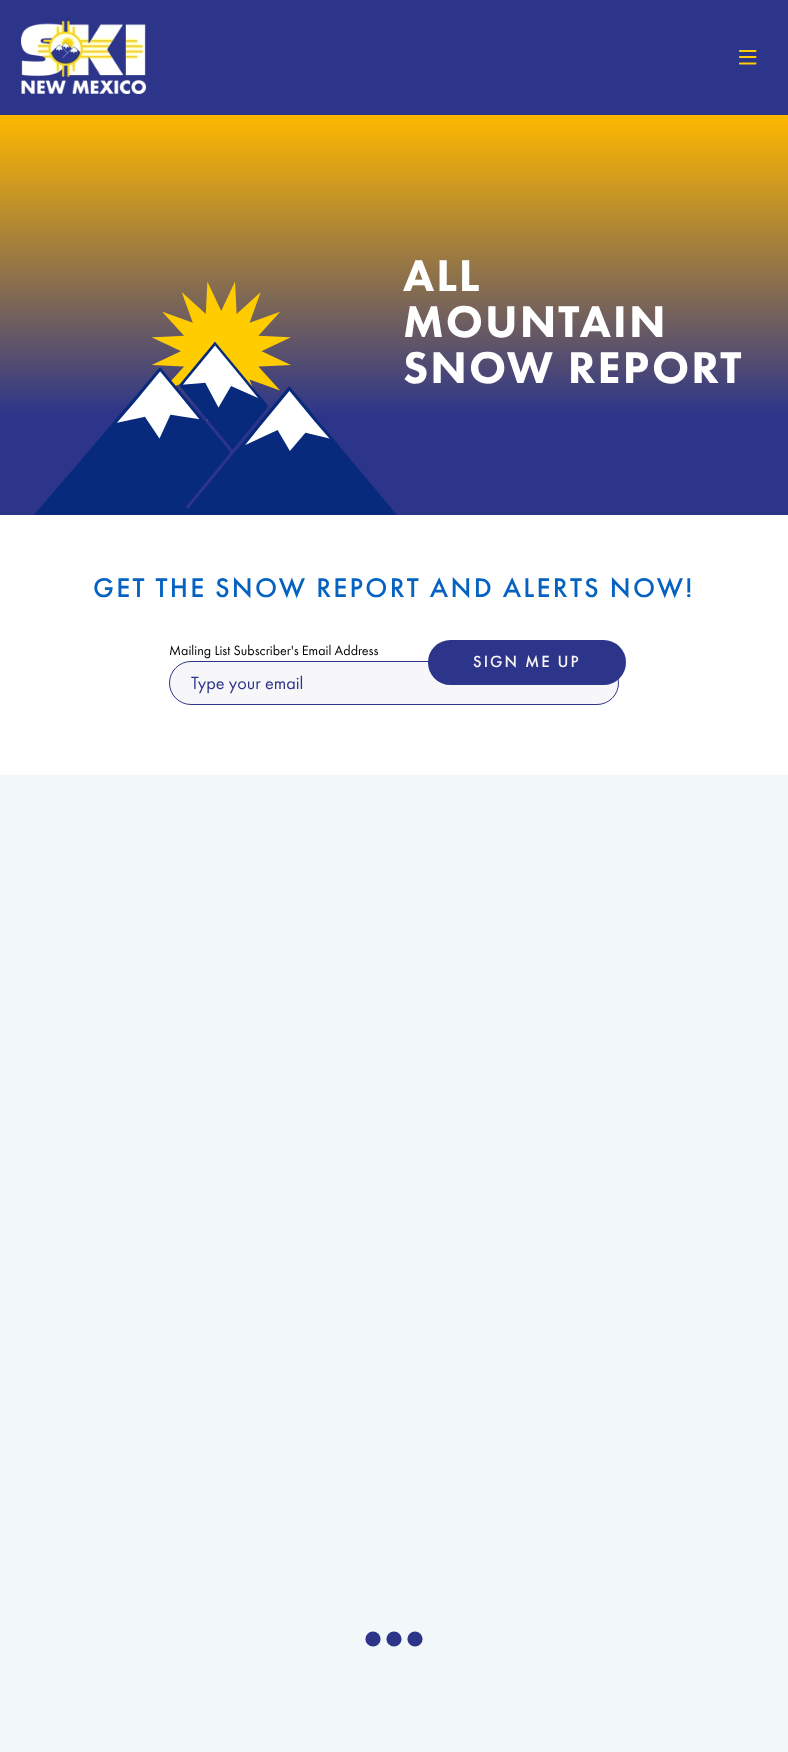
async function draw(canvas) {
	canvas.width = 788;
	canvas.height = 1752;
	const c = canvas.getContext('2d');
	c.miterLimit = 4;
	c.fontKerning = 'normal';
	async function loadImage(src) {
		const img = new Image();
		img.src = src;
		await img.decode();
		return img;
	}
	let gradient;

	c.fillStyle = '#fff';
	c.fillRect(0, 0, 788, 1752);
	c.fillStyle = '#2d358a';
	c.fillRect(0, 0, 788, 115);
	c.drawImage(await loadImage('img1.png'), 21, 21, 125, 73);
	c.save();
	c.beginPath();
	c.rect(739, 50, 18, 15);
	c.clip();
	c.beginPath();
	c.moveTo(740, 51);
	c.lineTo(755.5, 51);
	c.moveTo(740, 57);
	c.lineTo(755.5, 57);
	c.moveTo(740, 63.5);
	c.lineTo(755.5, 63.5);
	c.strokeStyle = '#fc0';
	c.lineWidth = 2.1;
	c.lineCap = 'round';
	c.lineJoin = 'round';
	c.stroke();
	c.restore();
	gradient = c.createLinearGradient(394, 115, 394, 515);
	gradient.addColorStop(0, '#ffb800');
	gradient.addColorStop(0.75, '#2d358a');
	c.fillStyle = gradient;
	c.fillRect(0, 115, 788, 400);
	c.drawImage(await loadImage('img2.png'), 34, 281, 363, 234);
	c.letterSpacing = '2px';
	c.font = '900 46px Futura PT';
	c.fillStyle = '#fff';
	for (const [text, x, y] of [
		['ALL', 403, 291],
		['MOUNTAIN', 403, 337],
		['SNOW REPORT', 403, 383],
	]) {
		c.fillText(text, x, y);
	}
	c.letterSpacing = '2.25px';
	c.font = '500 28px Futura PT';
	c.fillStyle = '#0562c0';
	c.fillText('GET THE SNOW REPORT AND ALERTS NOW!', 93, 597);
	c.letterSpacing = '0px';
	c.font = '14px Futura PT';
	c.fillStyle = '#000';
	c.fillText('Mailing List Subscriber\'s Email Address', 169, 655);
	c.fillStyle = '#f7f7fa';
	c.beginPath();
	c.roundRect(169.5, 661.5, 449, 43, 21.5);
	c.fill();
	c.strokeStyle = '#2d358a';
	c.stroke();
	c.font = '18.25px Futura PT';
	c.fillStyle = '#2d358a';
	c.fillText('Type your email', 191, 689);
	c.beginPath();
	c.roundRect(429.5, 641.5, 195, 42, 21);
	c.fill();
	c.lineWidth = 3;
	c.stroke();
	c.letterSpacing = '2px';
	c.font = '500 16.75px Futura PT';
	c.fillStyle = '#faf5f5';
	c.fillText('SIGN ME UP', 473, 667);
	c.fillStyle = '#f2f7fa';
	c.fillRect(0, 775, 788, 977);
	c.fillStyle = '#2d358a';
	c.beginPath();
	c.arc(373, 1639, 5, 0, 2 * Math.PI);
	c.fill();
	c.lineWidth = 5.2;
	c.stroke();
	c.beginPath();
	c.arc(394, 1639, 5, 0, 2 * Math.PI);
	c.fill();
	c.stroke();
	c.beginPath();
	c.arc(415, 1639, 5, 0, 2 * Math.PI);
	c.fill();
	c.stroke();
}

draw(document.querySelector('canvas'));
